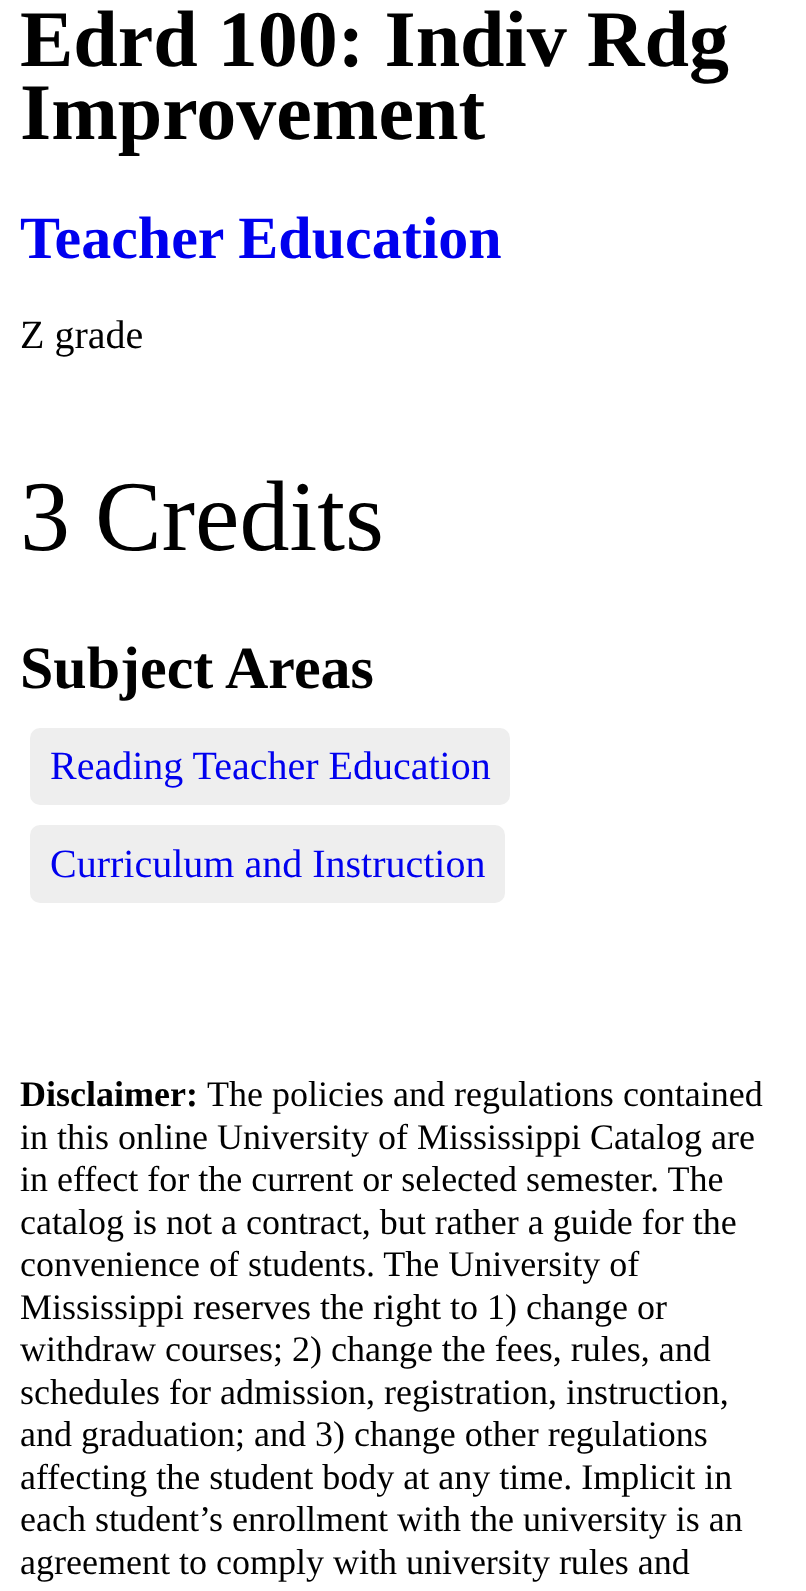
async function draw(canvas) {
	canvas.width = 806;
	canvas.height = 1591;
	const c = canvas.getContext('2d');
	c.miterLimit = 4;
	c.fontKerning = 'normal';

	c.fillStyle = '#fff';
	c.fillRect(0, 0, 806, 1591);
	c.font = 'bold 80px Liberation Serif';
	c.fillStyle = '#000';
	c.fillText('Edrd 100: Indiv Rdg', 20, 66);
	c.fillText('Improvement', 20, 139);
	c.font = 'bold 60px Liberation Serif';
	c.fillStyle = '#00e';
	c.fillText('Teacher Education', 20, 258);
	c.font = '40px Liberation Serif';
	c.fillStyle = '#000';
	c.fillText('Z grade', 20, 348);
	c.font = '100px Liberation Serif';
	c.fillText('3 Credits', 20, 550);
	c.font = 'bold 60px Liberation Serif';
	c.fillText('Subject Areas', 20, 688);
	c.fillStyle = '#eee';
	c.beginPath();
	c.roundRect(30, 728, 480, 77, 10);
	c.fill();
	c.font = '40px Liberation Serif';
	c.fillStyle = '#00e';
	c.fillText('Reading Teacher Education', 50, 779);
	c.fillStyle = '#eee';
	c.beginPath();
	c.roundRect(30, 825, 475, 78, 10);
	c.fill();
	c.fillStyle = '#00e';
	c.fillText('Curriculum and Instruction', 50, 877);
	c.font = 'bold 36px Liberation Serif';
	c.fillStyle = '#000';
	c.fillText('Disclaimer:', 20, 1106);
	c.font = '36px Liberation Serif';
	for (const [text, x, y] of [
		['The policies and regulations contained', 207, 1106],
		['in this online University of Mississippi Catalog are', 20, 1149],
		['in effect for the current or selected semester. The', 20, 1191],
		['catalog is not a contract, but rather a guide for the', 20, 1234],
		['convenience of students. The University of', 20, 1276],
		['Mississippi reserves the right to 1) change or', 20, 1319],
		['withdraw courses; 2) change the fees, rules, and', 20, 1361],
		['schedules for admission, registration, instruction,', 20, 1404],
		['and graduation; and 3) change other regulations', 20, 1446],
		['affecting the student body at any time. Implicit in', 20, 1489],
		['each student’s enrollment with the university is an', 20, 1531],
		['agreement to comply with university rules and', 20, 1574],
	]) {
		c.fillText(text, x, y);
	}
}

draw(document.querySelector('canvas'));
